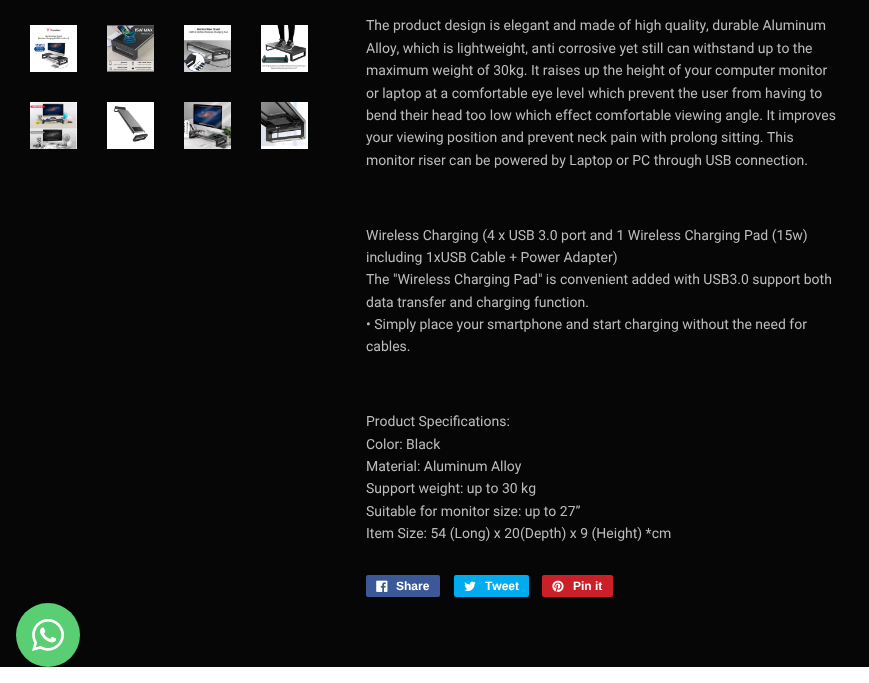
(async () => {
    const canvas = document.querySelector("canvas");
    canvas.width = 869;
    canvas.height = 683;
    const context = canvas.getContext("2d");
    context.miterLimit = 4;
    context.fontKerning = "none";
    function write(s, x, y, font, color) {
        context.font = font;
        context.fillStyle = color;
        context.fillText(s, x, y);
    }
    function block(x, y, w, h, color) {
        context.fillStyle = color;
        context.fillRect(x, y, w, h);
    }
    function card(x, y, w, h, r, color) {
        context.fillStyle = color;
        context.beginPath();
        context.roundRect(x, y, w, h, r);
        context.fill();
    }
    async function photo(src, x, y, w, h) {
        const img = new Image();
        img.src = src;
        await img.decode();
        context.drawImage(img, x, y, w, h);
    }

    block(0, 0, 869, 683, "rgb(6, 6, 6)");
    await photo("media/1.png", 30, 25, 47, 47);
    await photo("media/2.png", 107, 25, 47, 47);
    await photo("media/3.png", 184, 25, 47, 47);
    await photo("media/4.png", 261, 25, 47, 47);
    await photo("media/5.png", 30, 102, 47, 47);
    await photo("media/6.png", 107, 102, 47, 47);
    await photo("media/7.png", 184, 102, 47, 47);
    await photo("media/8.png", 261, 102, 47, 47);
    write("The product design is elegant and made of high quality, durable Aluminum", 366, 30, "14px Roboto", "rgb(188, 188, 188)");
    write("Alloy, which is lightweight, anti corrosive yet still can withstand up to the", 366, 53, "14px Roboto", "rgb(188, 188, 188)");
    write("maximum weight of 30kg. It raises up the height of your computer monitor", 366, 75, "14px Roboto", "rgb(188, 188, 188)");
    write("or laptop at a comfortable eye level which prevent the user from having to", 366, 98, "14px Roboto", "rgb(188, 188, 188)");
    write("bend their head too low which effect comfortable viewing angle. It improves", 366, 120, "14px Roboto", "rgb(188, 188, 188)");
    write("your viewing position and prevent neck pain with prolong sitting. This", 366, 142, "14px Roboto", "rgb(188, 188, 188)");
    write("monitor riser can be powered by Laptop or PC through USB connection.", 366, 165, "14px Roboto", "rgb(188, 188, 188)");
    write("Wireless Charging (4 x USB 3.0 port and 1 Wireless Charging Pad (15w)", 366, 240, "14px Roboto", "rgb(188, 188, 188)");
    write("including 1xUSB Cable + Power Adapter)", 366, 262, "14px Roboto", "rgb(188, 188, 188)");
    write("The \"Wireless Charging Pad\" is convenient added with USB3.0 support both", 366, 284, "14px Roboto", "rgb(188, 188, 188)");
    write("data transfer and charging function.", 366, 307, "14px Roboto", "rgb(188, 188, 188)");
    write("• Simply place your smartphone and start charging without the need for", 366, 329, "14px Roboto", "rgb(188, 188, 188)");
    write("cables.", 366, 351, "14px Roboto", "rgb(188, 188, 188)");
    write("Product Specifications:", 366, 426, "14px Roboto", "rgb(188, 188, 188)");
    write("Color: Black", 366, 449, "14px Roboto", "rgb(188, 188, 188)");
    write("Material: Aluminum Alloy", 366, 471, "14px Roboto", "rgb(188, 188, 188)");
    write("Support weight: up to 30 kg", 366, 493, "14px Roboto", "rgb(188, 188, 188)");
    write("Suitable for monitor size: up to 27”", 366, 516, "14px Roboto", "rgb(188, 188, 188)");
    write("Item Size: 54 (Long) x 20(Depth) x 9 (Height) *cm", 366, 538, "14px Roboto", "rgb(188, 188, 188)");
    card(366, 575, 74, 22, 2, "rgb(59, 89, 152)");
    await photo("media/9.png", 376, 580, 12, 12);
    write("Share", 396, 590, "bold 12px Liberation Sans", "rgb(255, 255, 255)");
    card(454, 575, 75, 22, 2, "rgb(0, 172, 237)");
    await photo("media/10.png", 464, 581, 12, 10);
    write("Tweet", 485, 590, "bold 12px Liberation Sans", "rgb(255, 255, 255)");
    card(542, 575, 71, 22, 2, "rgb(203, 32, 39)");
    await photo("media/11.png", 552, 580, 12, 12);
    write("Pin it", 573, 590, "bold 12px Liberation Sans", "rgb(255, 255, 255)");
    context.fillStyle = "rgb(89, 206, 114)";
    context.beginPath();
    context.arc(48, 635, 32, 0, Math.PI * 2);
    context.fill();
    await photo("media/12.png", 32, 619, 32, 32);
    block(0, 667, 869, 16, "rgb(255, 255, 255)");
})();
